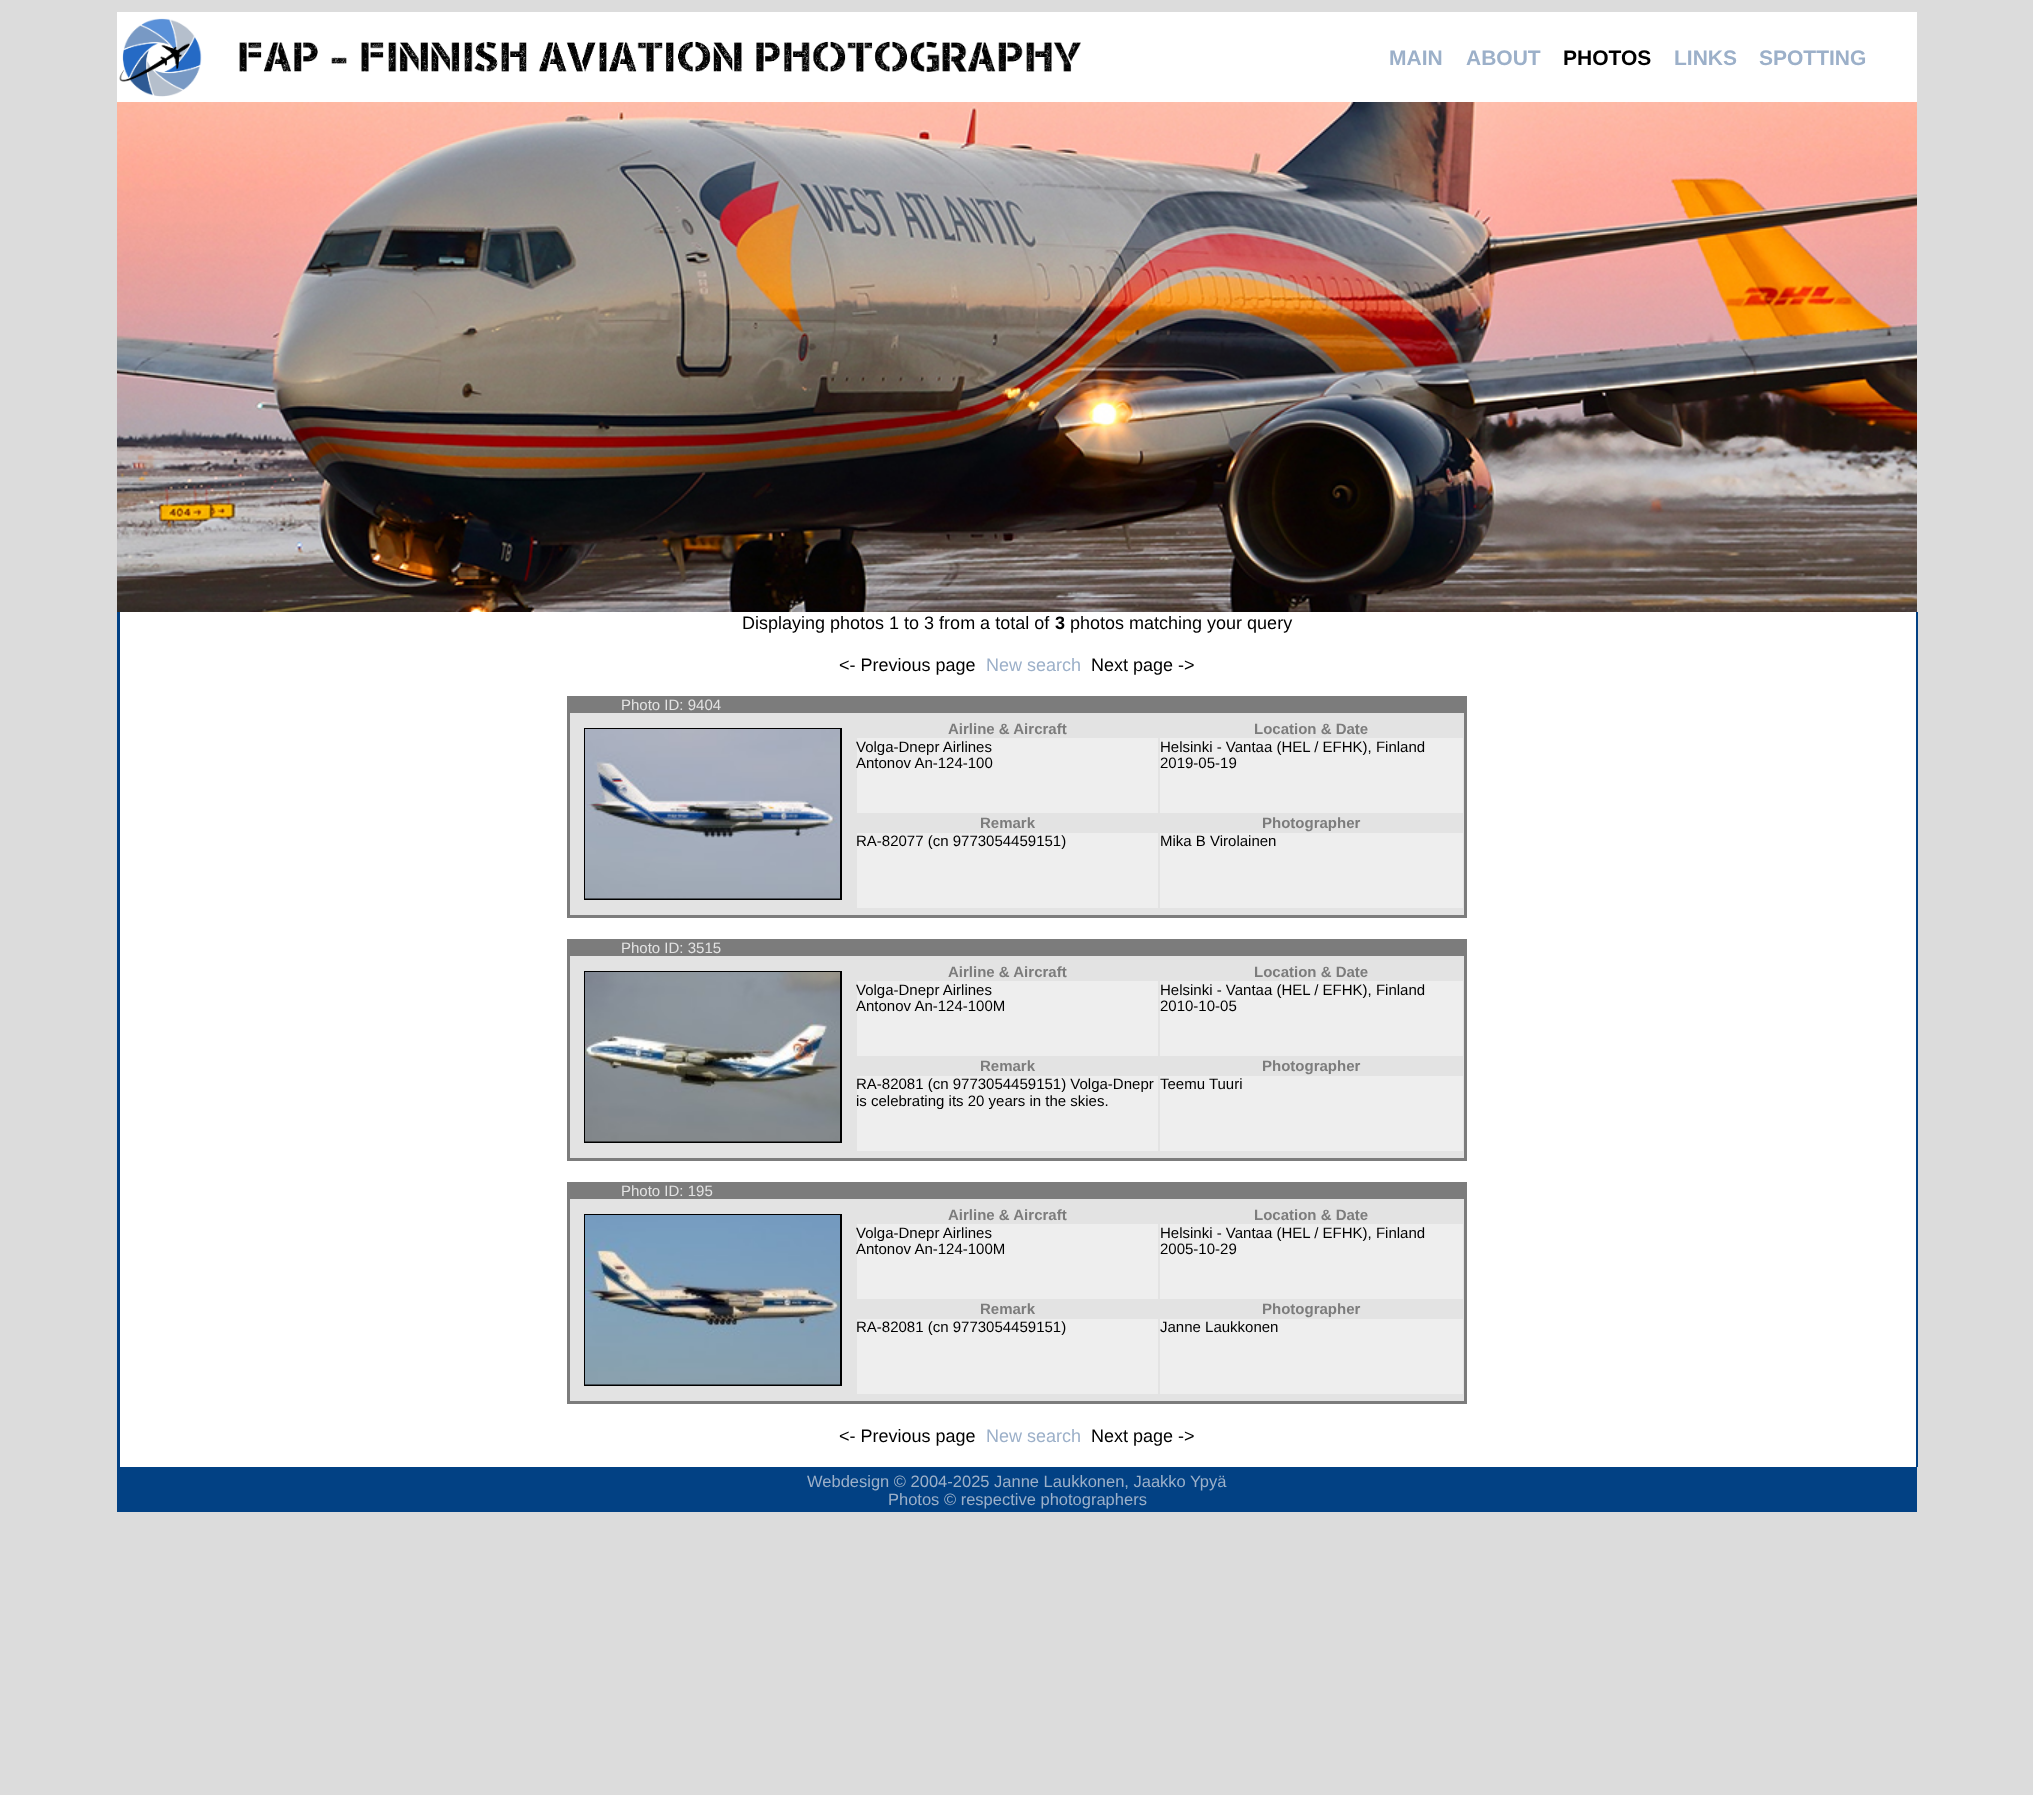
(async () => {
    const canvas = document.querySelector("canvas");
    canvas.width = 2033;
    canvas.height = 1795;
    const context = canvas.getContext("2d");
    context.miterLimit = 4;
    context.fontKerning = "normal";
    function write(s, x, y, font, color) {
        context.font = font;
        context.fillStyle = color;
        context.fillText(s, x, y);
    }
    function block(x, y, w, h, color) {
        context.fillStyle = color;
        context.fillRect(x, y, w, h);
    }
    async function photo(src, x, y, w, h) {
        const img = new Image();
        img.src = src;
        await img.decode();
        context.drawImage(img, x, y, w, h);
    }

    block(0, 0, 2033, 1795, "rgb(220, 220, 220)");
    block(117, 12, 1800, 90, "rgb(255, 255, 255)");
    await photo("media/1.png", 119, 18, 83, 79);
    await photo("media/2.png", 239, 41, 842, 31);
    write("MAIN", 1389, 65, "bold 21px Liberation Sans", "rgb(156, 176, 201)");
    write("ABOUT", 1466, 65, "bold 21px Liberation Sans", "rgb(156, 176, 201)");
    write("PHOTOS", 1563, 65, "bold 21px Liberation Sans", "rgb(0, 0, 0)");
    write("LINKS", 1674, 65, "bold 21px Liberation Sans", "rgb(156, 176, 201)");
    write("SPOTTING", 1759, 65, "bold 21px Liberation Sans", "rgb(156, 176, 201)");
    await photo("media/3.png", 117, 102, 1800, 510);
    block(120, 612, 1796, 855, "rgb(255, 255, 255)");
    block(117, 612, 3, 855, "rgb(2, 65, 132)");
    write("Displaying photos 1 to 3 from a total of", 742, 629, "18px Liberation Sans", "rgb(0, 0, 0)");
    write("3", 1055, 629, "bold 18px Liberation Sans", "rgb(0, 0, 0)");
    write("photos matching your query", 1070, 629, "18px Liberation Sans", "rgb(0, 0, 0)");
    write("<- Previous page", 839, 671, "18px Liberation Sans", "rgb(0, 0, 0)");
    write("New search", 986, 671, "18px Liberation Sans", "rgb(156, 176, 201)");
    write("Next page ->", 1091, 671, "18px Liberation Sans", "rgb(0, 0, 0)");
    block(567, 696, 900, 17, "rgb(124, 124, 124)");
    write("Photo ID: 9404", 621, 710, "15px Liberation Sans", "rgb(227, 227, 227)");
    block(570, 713, 894, 202, "rgb(227, 227, 227)");
    block(567, 713, 3, 202, "rgb(124, 124, 124)");
    context.strokeStyle = "rgb(0, 0, 0)";
    context.lineWidth = 2;
    context.strokeRect(585, 729, 256, 170);
    await photo("media/4.png", 585, 729, 255, 170);
    write("Airline & Aircraft", 948, 734, "bold 15px Liberation Sans", "rgb(124, 124, 124)");
    write("Location & Date", 1254, 734, "bold 15px Liberation Sans", "rgb(124, 124, 124)");
    block(857, 738, 301, 75, "rgb(238, 238, 238)");
    write("Volga-Dnepr Airlines", 856, 752, "15px Liberation Sans", "rgb(0, 0, 0)");
    write("Antonov An-124-100", 856, 768, "15px Liberation Sans", "rgb(0, 0, 0)");
    block(880, 755, 49, 1, "rgb(238, 238, 238)");
    block(1160, 738, 303, 75, "rgb(238, 238, 238)");
    write("Helsinki - Vantaa (HEL / EFHK), Finland", 1160, 752, "15px Liberation Sans", "rgb(0, 0, 0)");
    write("2019-05-19", 1160, 768, "15px Liberation Sans", "rgb(0, 0, 0)");
    write("Remark", 980, 828, "bold 15px Liberation Sans", "rgb(124, 124, 124)");
    write("Photographer", 1262, 828, "bold 15px Liberation Sans", "rgb(124, 124, 124)");
    block(857, 833, 301, 75, "rgb(238, 238, 238)");
    write("RA-82077 (cn 9773054459151)", 856, 846, "15px Liberation Sans", "rgb(0, 0, 0)");
    block(1160, 833, 303, 75, "rgb(238, 238, 238)");
    write("Mika B Virolainen", 1160, 846, "15px Liberation Sans", "rgb(0, 0, 0)");
    block(1464, 713, 3, 202, "rgb(124, 124, 124)");
    block(567, 915, 900, 3, "rgb(124, 124, 124)");
    block(567, 939, 900, 17, "rgb(124, 124, 124)");
    write("Photo ID: 3515", 621, 953, "15px Liberation Sans", "rgb(227, 227, 227)");
    block(570, 956, 894, 202, "rgb(227, 227, 227)");
    block(567, 956, 3, 202, "rgb(124, 124, 124)");
    context.strokeRect(585, 972, 256, 170);
    await photo("media/5.png", 585, 972, 255, 170);
    write("Airline & Aircraft", 948, 977, "bold 15px Liberation Sans", "rgb(124, 124, 124)");
    write("Location & Date", 1254, 977, "bold 15px Liberation Sans", "rgb(124, 124, 124)");
    block(857, 981, 301, 75, "rgb(238, 238, 238)");
    write("Volga-Dnepr Airlines", 856, 995, "15px Liberation Sans", "rgb(0, 0, 0)");
    write("Antonov An-124-100M", 856, 1011, "15px Liberation Sans", "rgb(0, 0, 0)");
    block(880, 998, 49, 1, "rgb(238, 238, 238)");
    block(1160, 981, 303, 75, "rgb(238, 238, 238)");
    write("Helsinki - Vantaa (HEL / EFHK), Finland", 1160, 995, "15px Liberation Sans", "rgb(0, 0, 0)");
    write("2010-10-05", 1160, 1011, "15px Liberation Sans", "rgb(0, 0, 0)");
    write("Remark", 980, 1071, "bold 15px Liberation Sans", "rgb(124, 124, 124)");
    write("Photographer", 1262, 1071, "bold 15px Liberation Sans", "rgb(124, 124, 124)");
    block(857, 1076, 301, 75, "rgb(238, 238, 238)");
    write("RA-82081 (cn 9773054459151) Volga-Dnepr", 856, 1089, "15px Liberation Sans", "rgb(0, 0, 0)");
    write("is celebrating its 20 years in the skies.", 856, 1106, "15px Liberation Sans", "rgb(0, 0, 0)");
    block(1160, 1076, 303, 75, "rgb(238, 238, 238)");
    write("Teemu Tuuri", 1160, 1089, "15px Liberation Sans", "rgb(0, 0, 0)");
    block(1464, 956, 3, 202, "rgb(124, 124, 124)");
    block(567, 1158, 900, 3, "rgb(124, 124, 124)");
    block(567, 1182, 900, 17, "rgb(124, 124, 124)");
    write("Photo ID: 195", 621, 1196, "15px Liberation Sans", "rgb(227, 227, 227)");
    block(570, 1199, 894, 202, "rgb(227, 227, 227)");
    block(567, 1199, 3, 202, "rgb(124, 124, 124)");
    context.strokeRect(585, 1215, 256, 170);
    await photo("media/6.png", 585, 1215, 255, 170);
    write("Airline & Aircraft", 948, 1220, "bold 15px Liberation Sans", "rgb(124, 124, 124)");
    write("Location & Date", 1254, 1220, "bold 15px Liberation Sans", "rgb(124, 124, 124)");
    block(857, 1224, 301, 75, "rgb(238, 238, 238)");
    write("Volga-Dnepr Airlines", 856, 1238, "15px Liberation Sans", "rgb(0, 0, 0)");
    write("Antonov An-124-100M", 856, 1254, "15px Liberation Sans", "rgb(0, 0, 0)");
    block(880, 1241, 49, 1, "rgb(238, 238, 238)");
    block(1160, 1224, 303, 75, "rgb(238, 238, 238)");
    write("Helsinki - Vantaa (HEL / EFHK), Finland", 1160, 1238, "15px Liberation Sans", "rgb(0, 0, 0)");
    write("2005-10-29", 1160, 1254, "15px Liberation Sans", "rgb(0, 0, 0)");
    write("Remark", 980, 1314, "bold 15px Liberation Sans", "rgb(124, 124, 124)");
    write("Photographer", 1262, 1314, "bold 15px Liberation Sans", "rgb(124, 124, 124)");
    block(857, 1319, 301, 75, "rgb(238, 238, 238)");
    write("RA-82081 (cn 9773054459151)", 856, 1332, "15px Liberation Sans", "rgb(0, 0, 0)");
    block(1160, 1319, 303, 75, "rgb(238, 238, 238)");
    write("Janne Laukkonen", 1160, 1332, "15px Liberation Sans", "rgb(0, 0, 0)");
    block(1464, 1199, 3, 202, "rgb(124, 124, 124)");
    block(567, 1401, 900, 3, "rgb(124, 124, 124)");
    write("<- Previous page", 839, 1442, "18px Liberation Sans", "rgb(0, 0, 0)");
    write("New search", 986, 1442, "18px Liberation Sans", "rgb(156, 176, 201)");
    write("Next page ->", 1091, 1442, "18px Liberation Sans", "rgb(0, 0, 0)");
    block(1916, 612, 2, 855, "rgb(2, 65, 132)");
    block(117, 1467, 1800, 45, "rgb(2, 65, 132)");
    write("Webdesign © 2004-2025 Janne Laukkonen, Jaakko Ypyä", 807, 1487, "16.5px Liberation Sans", "rgb(156, 176, 201)");
    write("Photos © respective photographers", 888, 1505, "16.5px Liberation Sans", "rgb(156, 176, 201)");
})();
